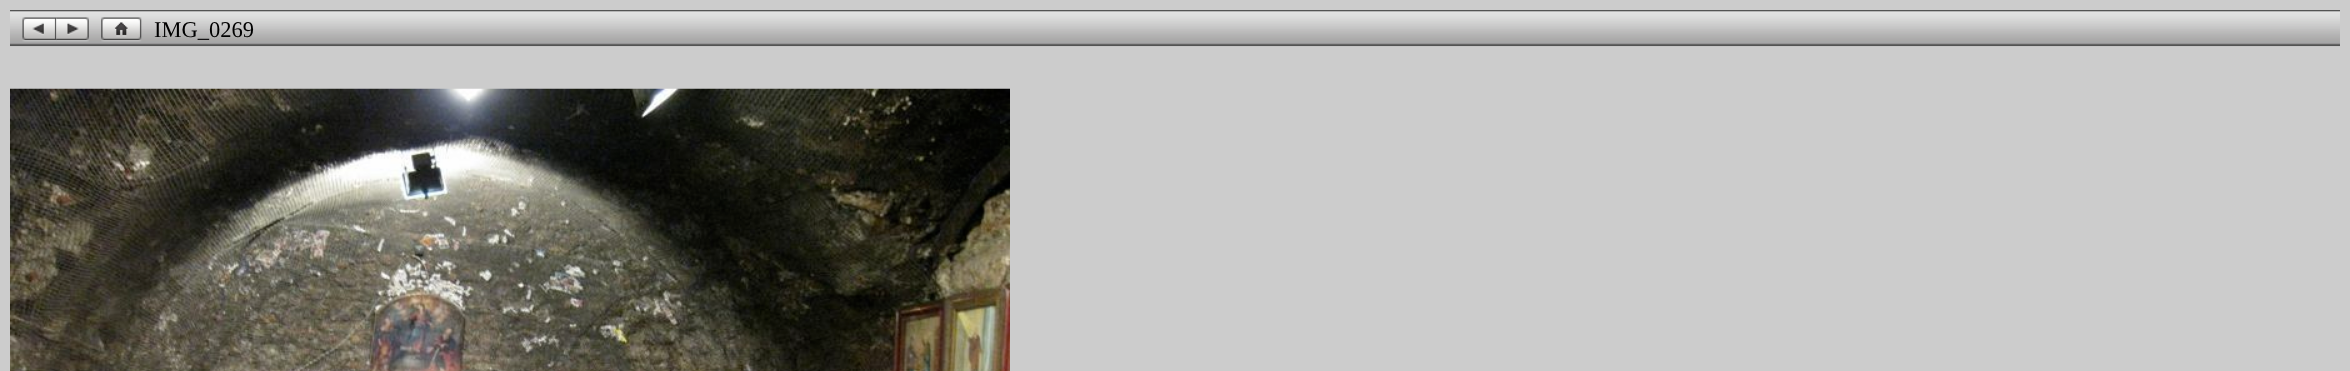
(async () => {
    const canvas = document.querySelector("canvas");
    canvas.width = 2350;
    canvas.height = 371;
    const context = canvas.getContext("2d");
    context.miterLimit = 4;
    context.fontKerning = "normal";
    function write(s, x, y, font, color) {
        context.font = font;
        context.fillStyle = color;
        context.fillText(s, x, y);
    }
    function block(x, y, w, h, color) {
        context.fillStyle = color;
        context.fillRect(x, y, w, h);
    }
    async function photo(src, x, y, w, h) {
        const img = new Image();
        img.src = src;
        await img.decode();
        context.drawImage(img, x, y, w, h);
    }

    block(0, 0, 2350, 371, "rgb(204, 204, 204)");
    await photo("media/1.png", 10, 10, 2330, 37);
    await photo("media/2.png", 22, 17, 35, 25);
    await photo("media/3.png", 56, 17, 33, 25);
    await photo("media/4.png", 101, 17, 41, 25);
    write("IMG_0269", 154, 37, "22.5px Liberation Serif", "rgb(0, 0, 0)");
    await photo("media/5.png", 10, 88, 1000, 283);
})();
